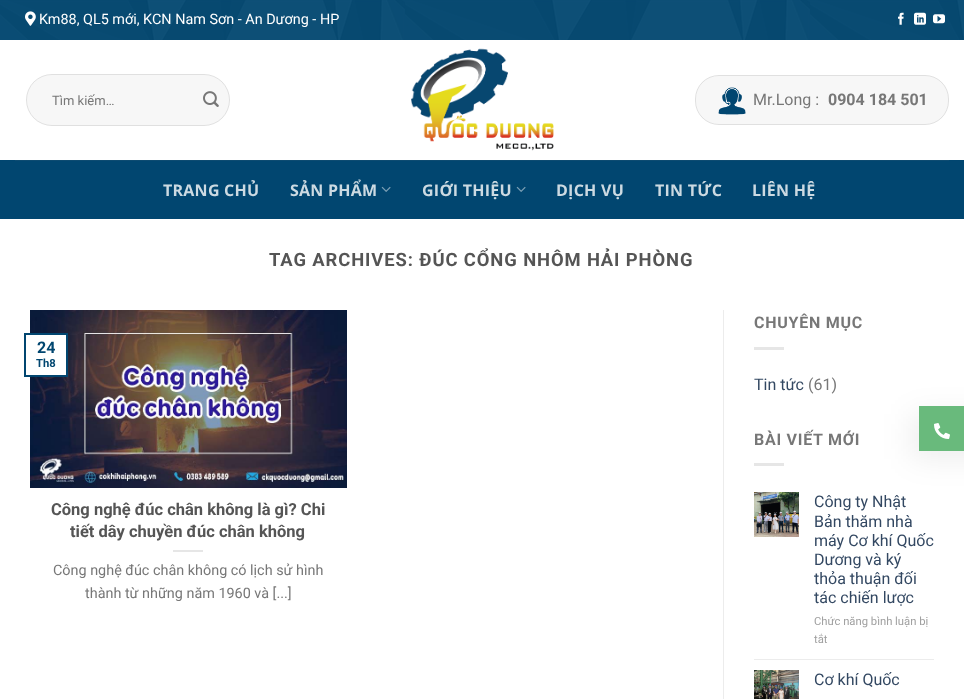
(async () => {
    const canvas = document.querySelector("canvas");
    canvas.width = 964;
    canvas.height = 699;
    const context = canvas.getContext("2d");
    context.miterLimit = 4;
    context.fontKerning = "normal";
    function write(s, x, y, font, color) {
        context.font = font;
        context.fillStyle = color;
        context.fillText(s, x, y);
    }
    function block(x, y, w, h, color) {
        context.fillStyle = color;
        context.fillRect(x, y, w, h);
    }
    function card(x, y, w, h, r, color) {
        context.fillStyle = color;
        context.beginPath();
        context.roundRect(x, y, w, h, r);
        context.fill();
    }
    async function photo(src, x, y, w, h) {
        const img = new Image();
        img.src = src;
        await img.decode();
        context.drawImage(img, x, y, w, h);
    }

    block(0, 0, 964, 699, "rgb(255, 255, 255)");
    block(0, 0, 964, 40, "rgb(1, 70, 112)");
    await photo("media/1.png", 0, 0, 964, 40);
    await photo("media/2.png", 25, 11, 11, 15);
    write("Km88, QL5 mới, KCN Nam Sơn - An Dương - HP", 39, 24, "14.4px Roboto", "rgb(255, 255, 255)");
    await photo("media/3.png", 898, 12, 6, 13);
    await photo("media/4.png", 914, 12, 12, 13);
    await photo("media/5.png", 933, 14, 12, 10);
    card(26, 74, 204, 52, 26, "rgb(247, 247, 247)");
    context.beginPath();
    context.roundRect(26.5, 74.5, 203, 51, 25.5);
    context.strokeStyle = "rgba(0, 0, 0, 0.09)";
    context.stroke();
    write("Tìm kiếm…", 52, 105, "13px Roboto", "rgb(119, 119, 119)");
    await photo("media/6.png", 203, 91, 16, 16);
    await photo("media/7.png", 411, 48, 143, 103);
    card(695, 75, 254, 50, 24, "rgb(247, 247, 247)");
    context.beginPath();
    context.roundRect(695.5, 75.5, 253, 49, 23.5);
    context.stroke();
    await photo("media/8.png", 718, 87, 28, 28);
    write("Mr.Long :", 753, 105, "16px Roboto", "rgb(119, 119, 119)");
    write("0904 184 501", 828, 105, "bold 16px Roboto", "rgb(119, 119, 119)");
    block(0, 160, 964, 59, "rgb(1, 70, 112)");
    block(15, 160, 934, 1, "rgb(13, 75, 113)");
    context.letterSpacing = "0.25px";
    write("TRANG CHỦ", 163, 196, "bold 16px Open Sans", "rgb(204, 218, 226)");
    write("SẢN PHẨM", 290, 196, "bold 16px Open Sans", "rgb(204, 218, 226)");
    await photo("media/9.png", 381, 186, 10, 6);
    write("GIỚI THIỆU", 422, 196, "bold 16px Open Sans", "rgb(204, 218, 226)");
    await photo("media/9.png", 516, 186, 10, 6);
    write("DỊCH VỤ", 556, 196, "bold 16px Open Sans", "rgb(204, 218, 226)");
    write("TIN TỨC", 655, 196, "bold 16px Open Sans", "rgb(204, 218, 226)");
    write("LIÊN HỆ", 752, 196, "bold 16px Open Sans", "rgb(204, 218, 226)");
    context.letterSpacing = "0.9px";
    write("TAG ARCHIVES: ĐÚC CỔNG NHÔM HẢI PHÒNG", 269, 266, "bold 18.4px Roboto", "rgb(85, 85, 85)");
    await photo("media/10.png", 30, 310, 317, 178);
    block(30, 335, 36, 40, "rgb(255, 255, 255)");
    context.strokeStyle = "rgb(1, 70, 112)";
    context.lineWidth = 2;
    context.strokeRect(25, 334, 42, 42);
    context.letterSpacing = "0px";
    write("24", 37, 353, "bold 16px Roboto", "rgb(1, 70, 112)");
    write("Th8", 36, 367, "bold 11.25px Roboto", "rgb(1, 70, 112)");
    write("Công nghệ đúc chân không là gì? Chi", 51, 515, "bold 16.5px Roboto", "rgb(85, 85, 85)");
    write("tiết dây chuyền đúc chân không", 70, 537, "bold 16.5px Roboto", "rgb(85, 85, 85)");
    block(173, 550, 30, 2, "rgb(230, 230, 230)");
    write("Công nghệ đúc chân không có lịch sử hình", 53, 575, "14.4px Roboto", "rgb(119, 119, 119)");
    write("thành từ những năm 1960 và [...]", 85, 598, "14.4px Roboto", "rgb(119, 119, 119)");
    block(723, 310, 1, 389, "rgb(236, 236, 236)");
    context.letterSpacing = "0.75px";
    write("CHUYÊN MỤC", 754, 328, "bold 16px Roboto", "rgb(119, 119, 119)");
    block(754, 347, 30, 3, "rgb(230, 230, 230)");
    context.letterSpacing = "0px";
    write("Tin tức", 754, 390, "16px Roboto", "rgb(51, 72, 98)");
    write("(61)", 808, 390, "16px Roboto", "rgb(119, 119, 119)");
    context.letterSpacing = "0.75px";
    write("BÀI VIẾT MỚI", 754, 445, "bold 16px Roboto", "rgb(119, 119, 119)");
    block(754, 463, 30, 3, "rgb(230, 230, 230)");
    await photo("media/11.png", 754, 492, 45, 45);
    context.letterSpacing = "0px";
    write("Công ty Nhật", 814, 507, "16px Roboto", "rgb(51, 72, 98)");
    write("Bản thăm nhà", 814, 527, "16px Roboto", "rgb(51, 72, 98)");
    write("máy Cơ khí Quốc", 814, 546, "16px Roboto", "rgb(51, 72, 98)");
    write("Dương và ký", 814, 565, "16px Roboto", "rgb(51, 72, 98)");
    write("thỏa thuận đối", 814, 584, "16px Roboto", "rgb(51, 72, 98)");
    write("tác chiến lược", 814, 603, "16px Roboto", "rgb(51, 72, 98)");
    write("Chức năng bình luận bị", 814, 625, "11.25px Roboto", "rgb(160, 160, 160)");
    write("tắt", 814, 643, "11.25px Roboto", "rgb(160, 160, 160)");
    block(754, 659, 180, 1, "rgb(236, 236, 236)");
    await photo("media/12.png", 754, 670, 45, 29);
    write("Cơ khí Quốc", 814, 685, "16px Roboto", "rgb(51, 72, 98)");
    context.fillStyle = "rgba(0, 0, 0, 0.07)";
    context.filter = "blur(15px)";
    context.beginPath();
    context.rect(911, 414, 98, 45);
    context.fill();
    context.filter = "none";
    block(919, 406, 45, 45, "rgb(105, 186, 124)");
    await photo("media/13.png", 934, 423, 16, 16);
})();
